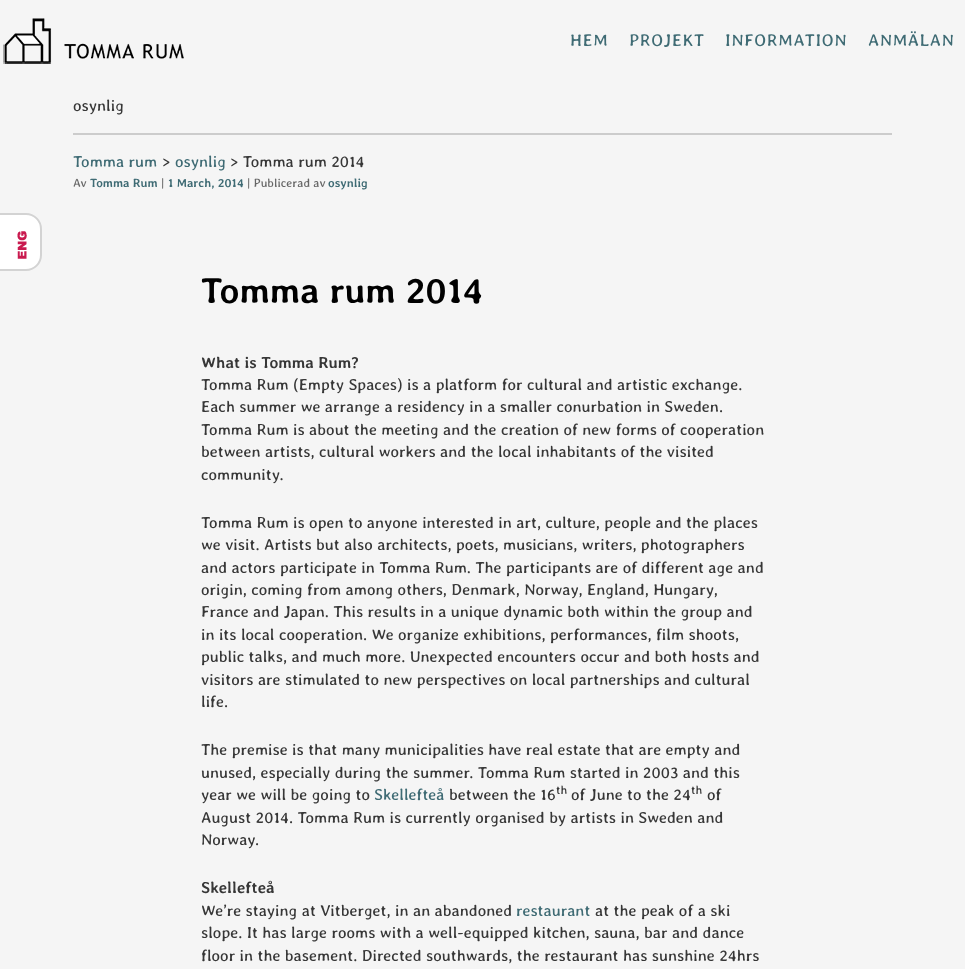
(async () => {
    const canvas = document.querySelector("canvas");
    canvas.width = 965;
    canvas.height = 969;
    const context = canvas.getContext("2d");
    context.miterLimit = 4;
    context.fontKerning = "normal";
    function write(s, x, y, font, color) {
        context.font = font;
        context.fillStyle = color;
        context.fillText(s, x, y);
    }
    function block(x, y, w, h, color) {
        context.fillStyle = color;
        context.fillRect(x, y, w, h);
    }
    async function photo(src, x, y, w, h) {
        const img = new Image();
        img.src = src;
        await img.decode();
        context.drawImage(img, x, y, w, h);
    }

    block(0, 0, 965, 969, "rgb(245, 245, 245)");
    await photo("media/1.png", 3, 18, 181, 46);
    context.letterSpacing = "0.75px";
    write("HEM", 570, 46, "17px Averia Libre", "rgb(63, 107, 116)");
    write("PROJEKT", 629, 46, "17px Averia Libre", "rgb(63, 107, 116)");
    write("INFORMATION", 725, 46, "17px Averia Libre", "rgb(63, 107, 116)");
    write("ANMÄLAN", 868, 46, "17px Averia Libre", "rgb(63, 107, 116)");
    context.fillStyle = "rgb(255, 255, 255)";
    context.beginPath();
    context.roundRect(-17, 214, 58, 56, 15);
    context.fill();
    context.strokeStyle = "rgb(211, 211, 211)";
    context.lineWidth = 2;
    context.stroke();
    await photo("media/2.png", 17, 231, 10, 28);
    context.letterSpacing = "0px";
    write("osynlig", 73, 111, "16px Averia Libre", "rgb(55, 55, 55)");
    block(73, 133, 819, 2, "rgb(204, 204, 204)");
    write("Tomma rum", 73, 167, "16px Averia Libre", "rgb(63, 107, 116)");
    write(">", 162, 167, "16px Averia Libre", "rgb(55, 55, 55)");
    write("osynlig", 175, 167, "16px Averia Libre", "rgb(63, 107, 116)");
    write("> Tomma rum 2014", 230, 167, "16px Averia Libre", "rgb(55, 55, 55)");
    write("Av", 73, 187, "12px Averia Libre", "rgb(102, 102, 102)");
    write("Tomma Rum", 90, 187, "bold 12px Averia Libre", "rgb(63, 107, 116)");
    write("|", 161, 187, "12px Averia Libre", "rgb(102, 102, 102)");
    write("1 March, 2014", 168, 187, "bold 12px Averia Libre", "rgb(63, 107, 116)");
    write("| Publicerad av", 247, 187, "12px Averia Libre", "rgb(102, 102, 102)");
    write("osynlig", 328, 187, "bold 12px Averia Libre", "rgb(63, 107, 116)");
    write("Tomma rum 2014", 201, 303, "bold 36px Averia Libre", "rgb(0, 0, 0)");
    write("What is Tomma Rum?", 201, 368, "bold 16px Averia Libre", "rgb(55, 55, 55)");
    write("Tomma Rum (Empty Spaces) is a platform for cultural and artistic exchange.", 201, 390, "16px Averia Libre", "rgb(55, 55, 55)");
    write("Each summer we arrange a residency in a smaller conurbation in Sweden.", 201, 412, "16px Averia Libre", "rgb(55, 55, 55)");
    write("Tomma Rum is about the meeting and the creation of new forms of cooperation", 201, 435, "16px Averia Libre", "rgb(55, 55, 55)");
    write("between artists, cultural workers and the local inhabitants of the visited", 201, 457, "16px Averia Libre", "rgb(55, 55, 55)");
    write("community.", 201, 480, "16px Averia Libre", "rgb(55, 55, 55)");
    write("Tomma Rum is open to anyone interested in art, culture, people and the places", 201, 528, "16px Averia Libre", "rgb(55, 55, 55)");
    write("we visit. Artists but also architects, poets, musicians, writers, photographers", 201, 550, "16px Averia Libre", "rgb(55, 55, 55)");
    write("and actors participate in Tomma Rum. The participants are of different age and", 201, 573, "16px Averia Libre", "rgb(55, 55, 55)");
    write("origin, coming from among others, Denmark, Norway, England, Hungary,", 201, 595, "16px Averia Libre", "rgb(55, 55, 55)");
    write("France and Japan. This results in a unique dynamic both within the group and", 201, 617, "16px Averia Libre", "rgb(55, 55, 55)");
    write("in its local cooperation. We organize exhibitions, performances, film shoots,", 201, 640, "16px Averia Libre", "rgb(55, 55, 55)");
    write("public talks, and much more. Unexpected encounters occur and both hosts and", 201, 662, "16px Averia Libre", "rgb(55, 55, 55)");
    write("visitors are stimulated to new perspectives on local partnerships and cultural", 201, 685, "16px Averia Libre", "rgb(55, 55, 55)");
    write("life.", 201, 707, "16px Averia Libre", "rgb(55, 55, 55)");
    write("The premise is that many municipalities have real estate that are empty and", 201, 755, "16px Averia Libre", "rgb(55, 55, 55)");
    write("unused, especially during the summer. Tomma Rum started in 2003 and this", 201, 778, "16px Averia Libre", "rgb(55, 55, 55)");
    write("year we will be going to", 201, 800, "16px Averia Libre", "rgb(55, 55, 55)");
    write("Skellefteå", 374, 800, "16px Averia Libre", "rgb(63, 107, 116)");
    write("between the 16", 449, 800, "16px Averia Libre", "rgb(55, 55, 55)");
    write("th", 556, 794, "12px Averia Libre", "rgb(55, 55, 55)");
    write("of June to the 24", 571, 800, "16px Averia Libre", "rgb(55, 55, 55)");
    write("th", 691, 794, "12px Averia Libre", "rgb(55, 55, 55)");
    write("of", 707, 800, "16px Averia Libre", "rgb(55, 55, 55)");
    write("August 2014. Tomma Rum is currently organised by artists in Sweden and", 201, 823, "16px Averia Libre", "rgb(55, 55, 55)");
    write("Norway.", 201, 845, "16px Averia Libre", "rgb(55, 55, 55)");
    write("Skellefteå", 201, 893, "bold 16px Averia Libre", "rgb(55, 55, 55)");
    write("We’re staying at Vitberget, in an abandoned", 201, 916, "16px Averia Libre", "rgb(55, 55, 55)");
    write("restaurant", 516, 916, "16px Averia Libre", "rgb(63, 107, 116)");
    write("at the peak of a ski", 595, 916, "16px Averia Libre", "rgb(55, 55, 55)");
    write("slope. It has large rooms with a well-equipped kitchen, sauna, bar and dance", 201, 938, "16px Averia Libre", "rgb(55, 55, 55)");
    write("floor in the basement. Directed southwards, the restaurant has sunshine 24hrs", 201, 961, "16px Averia Libre", "rgb(55, 55, 55)");
})();
